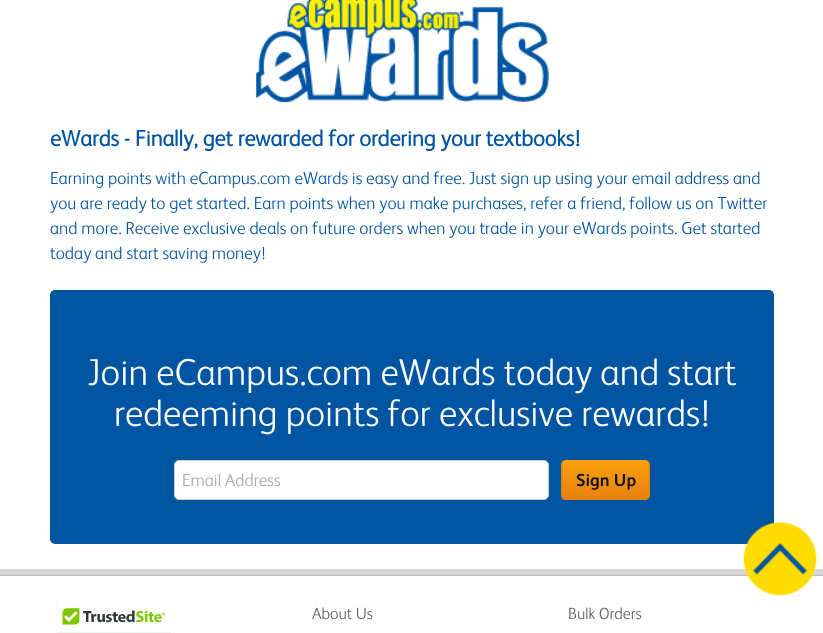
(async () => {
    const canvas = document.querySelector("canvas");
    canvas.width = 823;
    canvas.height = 633;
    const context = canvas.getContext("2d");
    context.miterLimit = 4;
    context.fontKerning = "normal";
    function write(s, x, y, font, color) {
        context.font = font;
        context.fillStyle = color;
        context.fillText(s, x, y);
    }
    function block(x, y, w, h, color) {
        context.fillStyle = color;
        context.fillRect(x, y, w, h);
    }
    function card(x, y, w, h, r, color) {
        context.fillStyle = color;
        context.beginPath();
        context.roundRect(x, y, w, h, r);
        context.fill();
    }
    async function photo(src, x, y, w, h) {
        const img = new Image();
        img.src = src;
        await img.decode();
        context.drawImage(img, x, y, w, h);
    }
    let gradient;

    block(0, 0, 823, 633, "rgb(255, 255, 255)");
    await photo("media/1.png", 256, 0, 293, 102);
    write("eWards - Finally, get rewarded for ordering your textbooks!", 50, 146, "bold 22.5px 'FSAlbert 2'", "rgb(0, 85, 163)");
    write("Earning points with eCampus.com eWards is easy and free. Just sign up using your email address and", 50, 184, "300 17.5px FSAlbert", "rgb(0, 85, 163)");
    write("you are ready to get started. Earn points when you make purchases, refer a friend, follow us on Twitter", 50, 209, "300 17.5px FSAlbert", "rgb(0, 85, 163)");
    write("and more. Receive exclusive deals on future orders when you trade in your eWards points. Get started", 50, 234, "300 17.5px FSAlbert", "rgb(0, 85, 163)");
    write("today and start saving money!", 50, 259, "300 17.5px FSAlbert", "rgb(0, 85, 163)");
    card(50, 290, 724, 254, 5, "rgb(0, 85, 163)");
    write("Join eCampus.com eWards today and start", 87, 385, "300 37.5px FSAlbert", "rgb(255, 255, 255)");
    write("redeeming points for exclusive rewards!", 114, 426, "300 37.5px FSAlbert", "rgb(255, 255, 255)");
    context.beginPath();
    context.roundRect(174.5, 460.5, 374, 39, 4.5);
    context.fill();
    context.strokeStyle = "rgb(204, 204, 204)";
    context.stroke();
    write("Email Address", 182, 486, "300 17.5px FSAlbert", "rgb(168, 168, 168)");
    context.save();
    context.beginPath();
    context.roundRect(561, 460, 89, 40, 5);
    context.clip();
    gradient = context.createLinearGradient(563, 424, 563, 461);
    gradient.addColorStop(0, "rgb(250, 161, 15)");
    gradient.addColorStop(1, "rgb(232, 128, 16)");
    context.fillStyle = gradient;
    context.fillRect(561, 460, 89, 1);
    gradient = context.createLinearGradient(563, 461, 563, 499);
    gradient.addColorStop(0, "rgb(250, 161, 15)");
    gradient.addColorStop(1, "rgb(232, 128, 16)");
    context.fillStyle = gradient;
    context.fillRect(561, 461, 89, 38);
    gradient = context.createLinearGradient(563, 499, 563, 536);
    gradient.addColorStop(0, "rgb(250, 161, 15)");
    gradient.addColorStop(1, "rgb(232, 128, 16)");
    context.fillStyle = gradient;
    context.fillRect(561, 499, 89, 1);
    context.restore();
    context.save();
    context.beginPath();
    context.rect(174, 460, 476, 40);
    context.clip();
    context.beginPath();
    context.moveTo(563, 462);
    context.lineTo(566, 460.5);
    context.lineTo(645.5, 460.5);
    context.lineTo(648, 462);
    context.strokeStyle = "rgb(250, 161, 15)";
    context.lineWidth = 1.2;
    context.stroke();
    context.beginPath();
    context.moveTo(648, 462);
    context.bezierCurveTo(650, 464, 649.5, 467.5, 649.5, 470);
    context.lineTo(649.5, 480);
    context.bezierCurveTo(649.5, 501.5, 653, 499.5, 632, 499.5);
    context.lineTo(579.5, 499.5);
    context.bezierCurveTo(558, 499.5, 562, 501.5, 562, 480);
    context.lineTo(562, 470);
    context.bezierCurveTo(562, 467.5, 561, 464, 563, 462);
    context.strokeStyle = "rgb(232, 128, 16)";
    context.stroke();
    context.restore();
    write("Sign Up", 576, 486, "bold 17.5px FSAlbert", "rgb(20, 20, 20)");
    block(0, 569, 823, 6, "rgb(215, 215, 215)");
    block(0, 575, 823, 1, "rgb(191, 191, 191)");
    await photo("media/2.png", 743, 522, 74, 74);
    await photo("media/3.png", 56, 601, 115, 32);
    write("About Us", 312, 619, "300 16.25px FSAlbert", "rgb(97, 97, 97)");
    write("Bulk Orders", 568, 619, "300 16.25px FSAlbert", "rgb(97, 97, 97)");
})();
